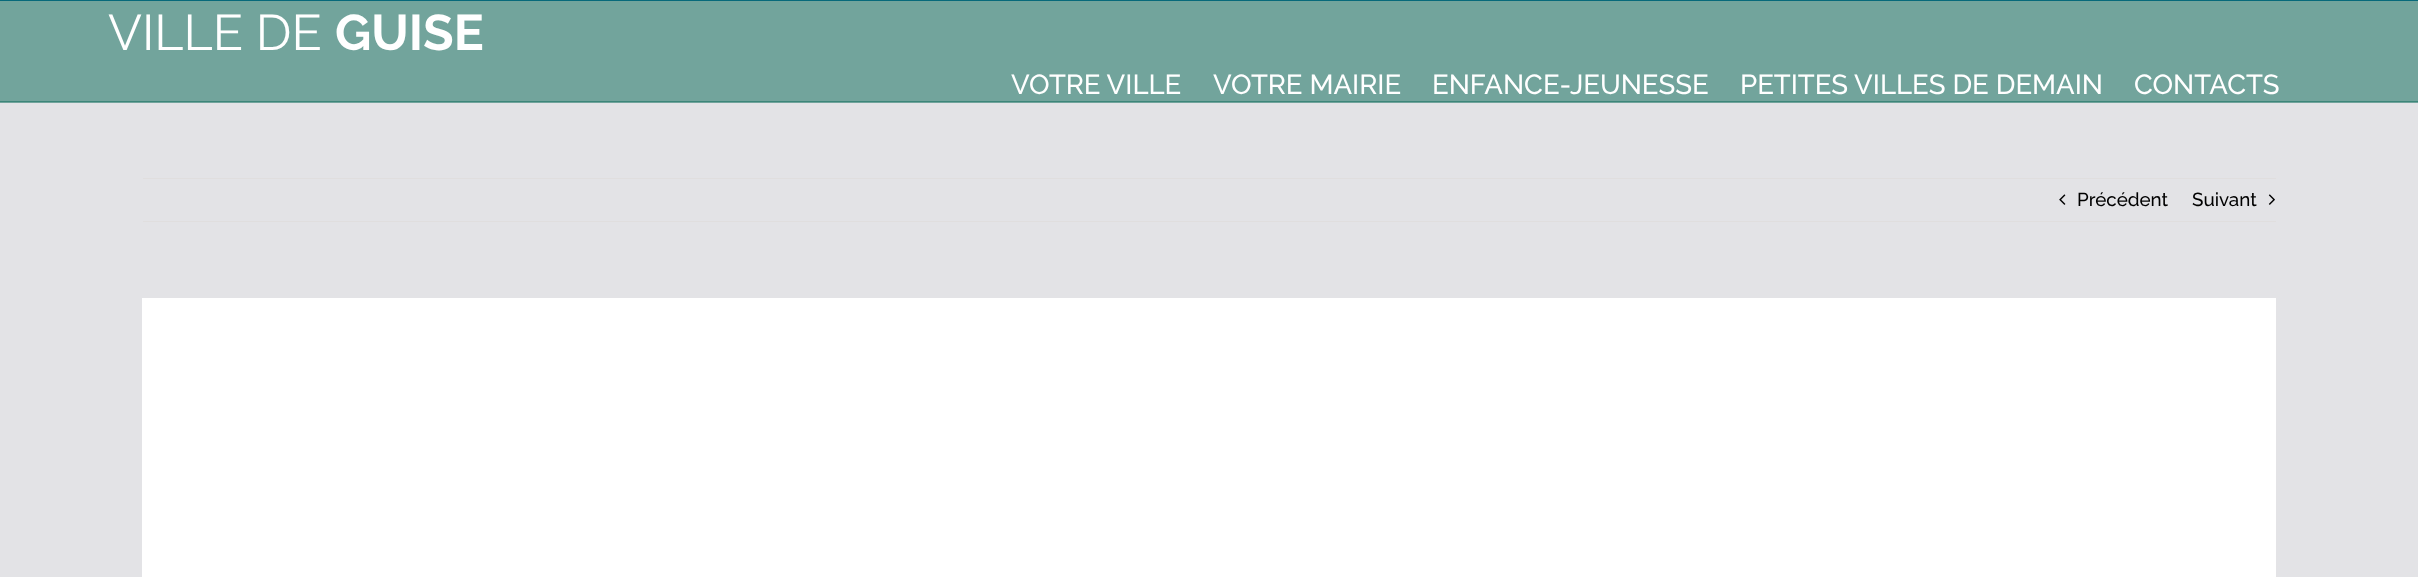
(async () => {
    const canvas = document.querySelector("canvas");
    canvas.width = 2418;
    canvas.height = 577;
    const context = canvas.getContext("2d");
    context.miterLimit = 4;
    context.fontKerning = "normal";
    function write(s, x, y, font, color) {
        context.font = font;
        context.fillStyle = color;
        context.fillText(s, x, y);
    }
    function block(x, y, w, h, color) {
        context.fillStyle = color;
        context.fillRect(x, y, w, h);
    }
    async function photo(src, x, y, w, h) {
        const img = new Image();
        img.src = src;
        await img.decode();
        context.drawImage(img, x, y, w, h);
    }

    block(0, 0, 2418, 577, "rgb(227, 227, 230)");
    block(0, 0, 2418, 1, "rgb(7, 105, 122)");
    block(0, 1, 2418, 102, "rgb(114, 164, 156)");
    block(0, 101, 2418, 1, "rgb(61, 134, 121)");
    write("VILLE DE", 108, 50, "50px Raleway", "rgb(255, 255, 255)");
    write("GUISE", 335, 50, "bold 50px Raleway", "rgb(255, 255, 255)");
    write("VOTRE VILLE", 1011, 94, "500 27.5px Raleway", "rgb(255, 255, 255)");
    write("VOTRE MAIRIE", 1213, 94, "500 27.5px Raleway", "rgb(255, 255, 255)");
    write("ENFANCE-JEUNESSE", 1432, 94, "500 27.5px Raleway", "rgb(255, 255, 255)");
    write("PETITES VILLES DE DEMAIN", 1740, 94, "500 27.5px Raleway", "rgb(255, 255, 255)");
    write("CONTACTS", 2134, 94, "500 27.5px Raleway", "rgb(255, 255, 255)");
    block(143, 178, 2133, 1, "rgb(224, 222, 222)");
    block(143, 221, 2133, 1, "rgb(224, 222, 222)");
    await photo("media/1.png", 2059, 194, 7, 11);
    write("Précédent", 2077, 206, "500 18.75px Raleway", "rgb(0, 0, 0)");
    write("Suivant", 2192, 206, "500 18.75px Raleway", "rgb(0, 0, 0)");
    await photo("media/2.png", 2268, 194, 7, 11);
    block(142, 298, 2134, 279, "rgb(255, 255, 255)");
})();
